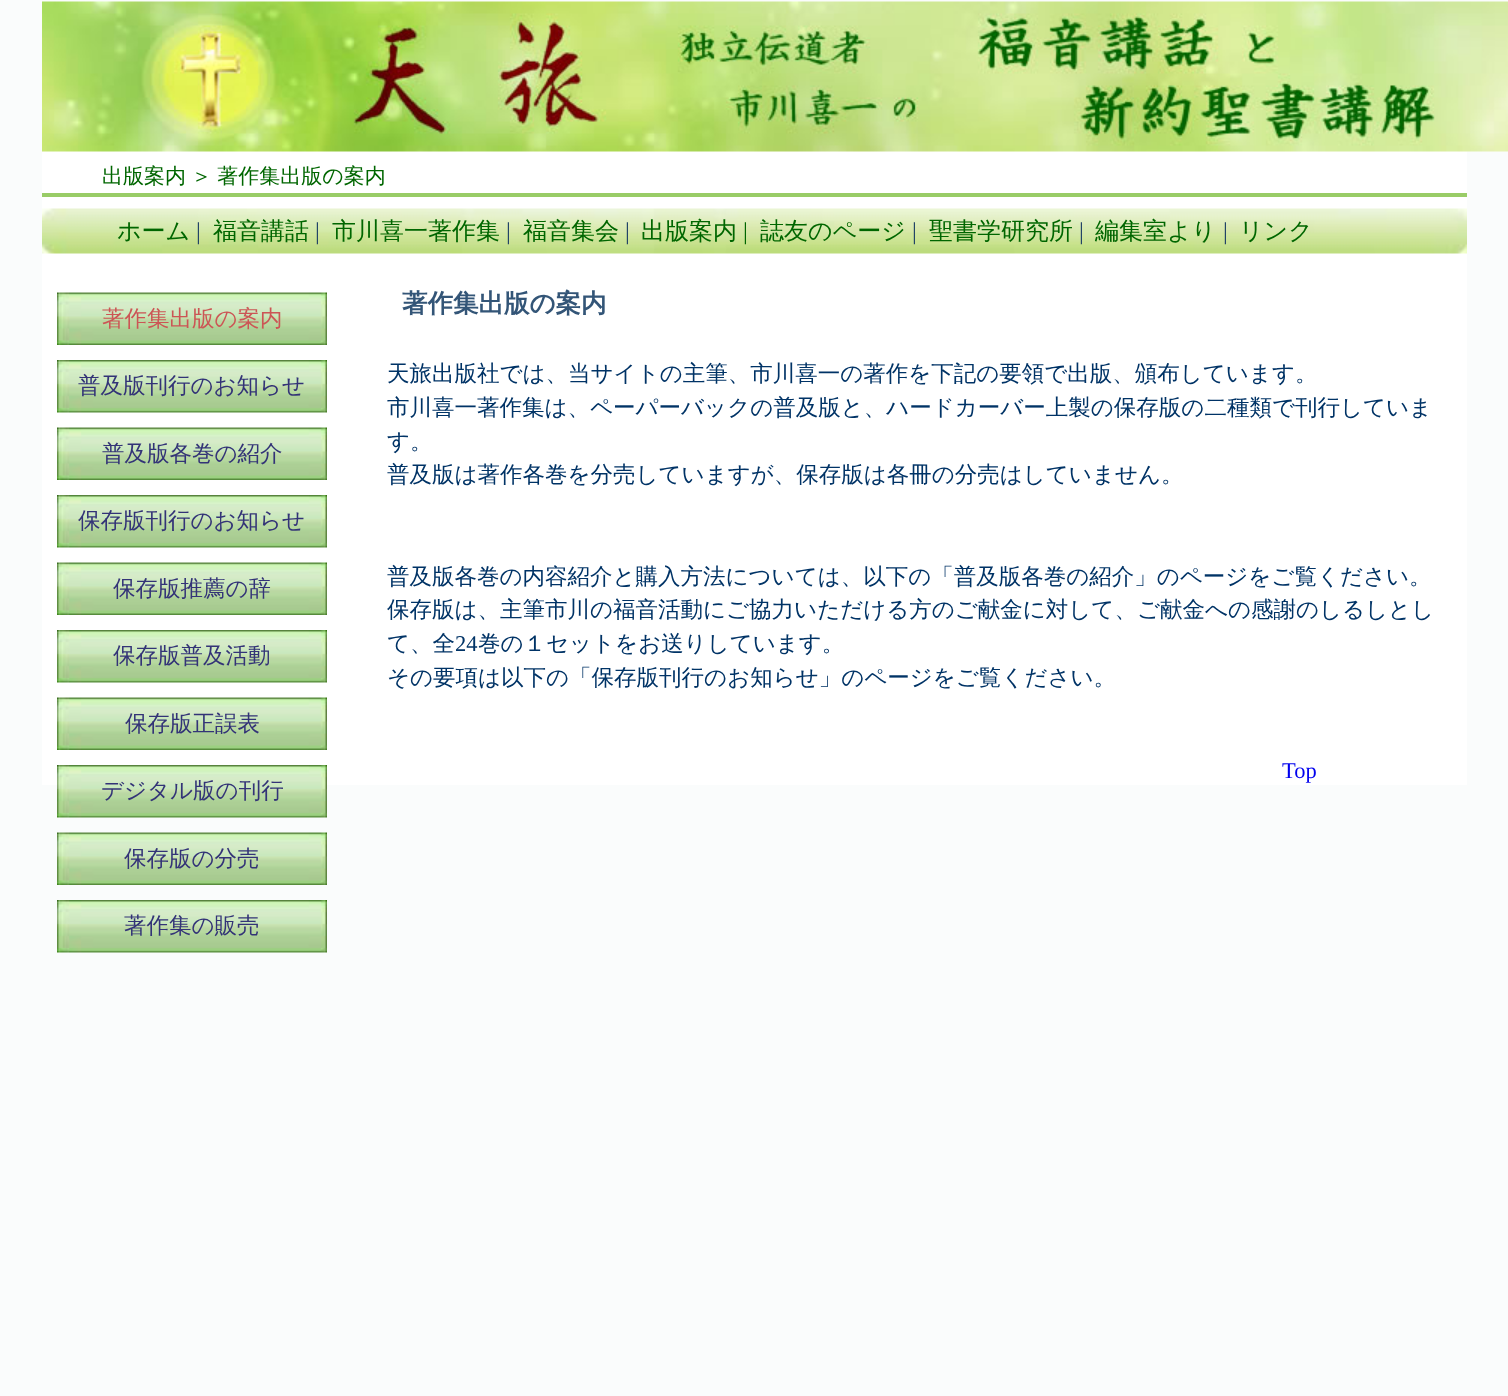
(async () => {
    const canvas = document.querySelector("canvas");
    canvas.width = 1508;
    canvas.height = 1396;
    const context = canvas.getContext("2d");
    context.miterLimit = 4;
    context.fontKerning = "normal";
    function write(s, x, y, font, color) {
        context.font = font;
        context.fillStyle = color;
        context.fillText(s, x, y);
    }
    function block(x, y, w, h, color) {
        context.fillStyle = color;
        context.fillRect(x, y, w, h);
    }
    async function photo(src, x, y, w, h) {
        const img = new Image();
        img.src = src;
        await img.decode();
        context.drawImage(img, x, y, w, h);
    }

    block(0, 0, 1508, 1396, "rgb(250, 252, 252)");
    block(42, 151, 1425, 634, "rgb(255, 255, 255)");
    await photo("media/1.png", 42, 1, 1466, 151);
    write("出版案内", 102, 183, "500 21px WenQuanYi Zen Hei", "rgb(0, 102, 0)");
    context.wordSpacing = "-1px";
    write("＞ 著作集出版の案内", 191, 183, "500 21px WenQuanYi Zen Hei", "rgb(0, 102, 0)");
    block(42, 193, 1425, 4, "rgb(153, 204, 103)");
    await photo("media/2.png", 42, 208, 1425, 46);
    context.wordSpacing = "0px";
    write("ホーム", 117, 239, "500 24px WenQuanYi Zen Hei", "rgb(0, 102, 0)");
    write("|", 196, 239, "24px Liberation Serif", "rgb(34, 68, 102)");
    write("福音講話", 213, 239, "500 24px WenQuanYi Zen Hei", "rgb(0, 102, 0)");
    write("|", 315, 239, "24px Liberation Serif", "rgb(34, 68, 102)");
    write("市川喜一著作集", 332, 239, "500 24px WenQuanYi Zen Hei", "rgb(0, 102, 0)");
    write("|", 506, 239, "24px Liberation Serif", "rgb(34, 68, 102)");
    write("福音集会", 523, 239, "500 24px WenQuanYi Zen Hei", "rgb(0, 102, 0)");
    write("|", 625, 239, "24px Liberation Serif", "rgb(34, 68, 102)");
    write("出版案内", 641, 239, "500 24px WenQuanYi Zen Hei", "rgb(0, 102, 0)");
    write("|", 743, 239, "24px Liberation Serif", "rgb(0, 102, 0)");
    write("誌友のページ", 760, 239, "500 24px WenQuanYi Zen Hei", "rgb(0, 102, 0)");
    write("|", 912, 239, "24px Liberation Serif", "rgb(34, 68, 102)");
    write("聖書学研究所", 929, 239, "500 24px WenQuanYi Zen Hei", "rgb(0, 102, 0)");
    write("|", 1079, 239, "24px Liberation Serif", "rgb(34, 68, 102)");
    write("編集室より", 1095, 239, "500 24px WenQuanYi Zen Hei", "rgb(0, 102, 0)");
    write("|", 1223, 239, "24px Liberation Serif", "rgb(34, 68, 102)");
    write("リンク", 1239, 239, "500 24px WenQuanYi Zen Hei", "rgb(0, 102, 0)");
    await photo("media/3.png", 57, 292, 270, 53);
    write("著作集出版の案内", 102, 326, "500 22.5px WenQuanYi Zen Hei", "rgb(204, 85, 85)");
    await photo("media/4.png", 57, 360, 270, 53);
    write("普及版刊行のお知らせ", 78, 393, "500 22.5px WenQuanYi Zen Hei", "rgb(51, 51, 119)");
    await photo("media/3.png", 57, 427, 270, 53);
    write("普及版各巻の紹介", 102, 461, "500 22.5px WenQuanYi Zen Hei", "rgb(51, 51, 119)");
    await photo("media/4.png", 57, 495, 270, 53);
    write("保存版刊行のお知らせ", 78, 528, "500 22.5px WenQuanYi Zen Hei", "rgb(51, 51, 119)");
    await photo("media/3.png", 57, 562, 270, 53);
    write("保存版推薦の辞", 113, 596, "500 22.5px WenQuanYi Zen Hei", "rgb(51, 51, 119)");
    await photo("media/4.png", 57, 630, 270, 53);
    write("保存版普及活動", 113, 663, "500 22.5px WenQuanYi Zen Hei", "rgb(51, 51, 119)");
    await photo("media/3.png", 57, 697, 270, 53);
    write("保存版正誤表", 125, 731, "500 22.5px WenQuanYi Zen Hei", "rgb(51, 51, 119)");
    await photo("media/5.png", 57, 765, 270, 53);
    write("デジタル版の刊行", 101, 798, "500 22.5px WenQuanYi Zen Hei", "rgb(51, 51, 119)");
    await photo("media/6.png", 57, 832, 270, 53);
    write("保存版の分売", 124, 866, "500 22.5px WenQuanYi Zen Hei", "rgb(51, 51, 119)");
    await photo("media/5.png", 57, 900, 270, 53);
    write("著作集の販売", 124, 933, "500 22.5px WenQuanYi Zen Hei", "rgb(51, 51, 119)");
    write("著作集出版の案内", 402, 312, "bold 25.5px WenQuanYi Zen Hei", "rgb(51, 85, 119)");
    write("天旅出版社では、当サイトの主筆、市川喜一の著作を下記の要領で出版、頒布しています。", 387, 381, "500 22.5px WenQuanYi Zen Hei", "rgb(0, 51, 102)");
    write("市川喜一著作集は、ペーパーバックの普及版と、ハードカーバー上製の保存版の二種類で刊行していま", 387, 415, "500 22.5px WenQuanYi Zen Hei", "rgb(0, 51, 102)");
    write("す。", 387, 449, "500 22.5px WenQuanYi Zen Hei", "rgb(0, 51, 102)");
    write("普及版は著作各巻を分売していますが、保存版は各冊の分売はしていません。", 387, 482, "500 22.5px WenQuanYi Zen Hei", "rgb(0, 51, 102)");
    write("普及版各巻の内容紹介と購入方法については、以下の「普及版各巻の紹介」のページをご覧ください。", 387, 584, "500 22.5px WenQuanYi Zen Hei", "rgb(0, 51, 102)");
    write("保存版は、主筆市川の福音活動にご協力いただける方のご献金に対して、ご献金への感謝のしるしとし", 387, 617, "500 22.5px WenQuanYi Zen Hei", "rgb(0, 51, 102)");
    write("て、全", 387, 651, "500 22.5px WenQuanYi Zen Hei", "rgb(0, 51, 102)");
    write("24", 455, 651, "22.5px Liberation Serif", "rgb(0, 51, 102)");
    write("巻の１セットをお送りしています。", 478, 651, "500 22.5px WenQuanYi Zen Hei", "rgb(0, 51, 102)");
    write("その要項は以下の「保存版刊行のお知らせ」のページをご覧ください。", 387, 685, "500 22.5px WenQuanYi Zen Hei", "rgb(0, 51, 102)");
    write("Top", 1282, 778, "22.5px Liberation Serif", "rgb(0, 0, 238)");
})();
